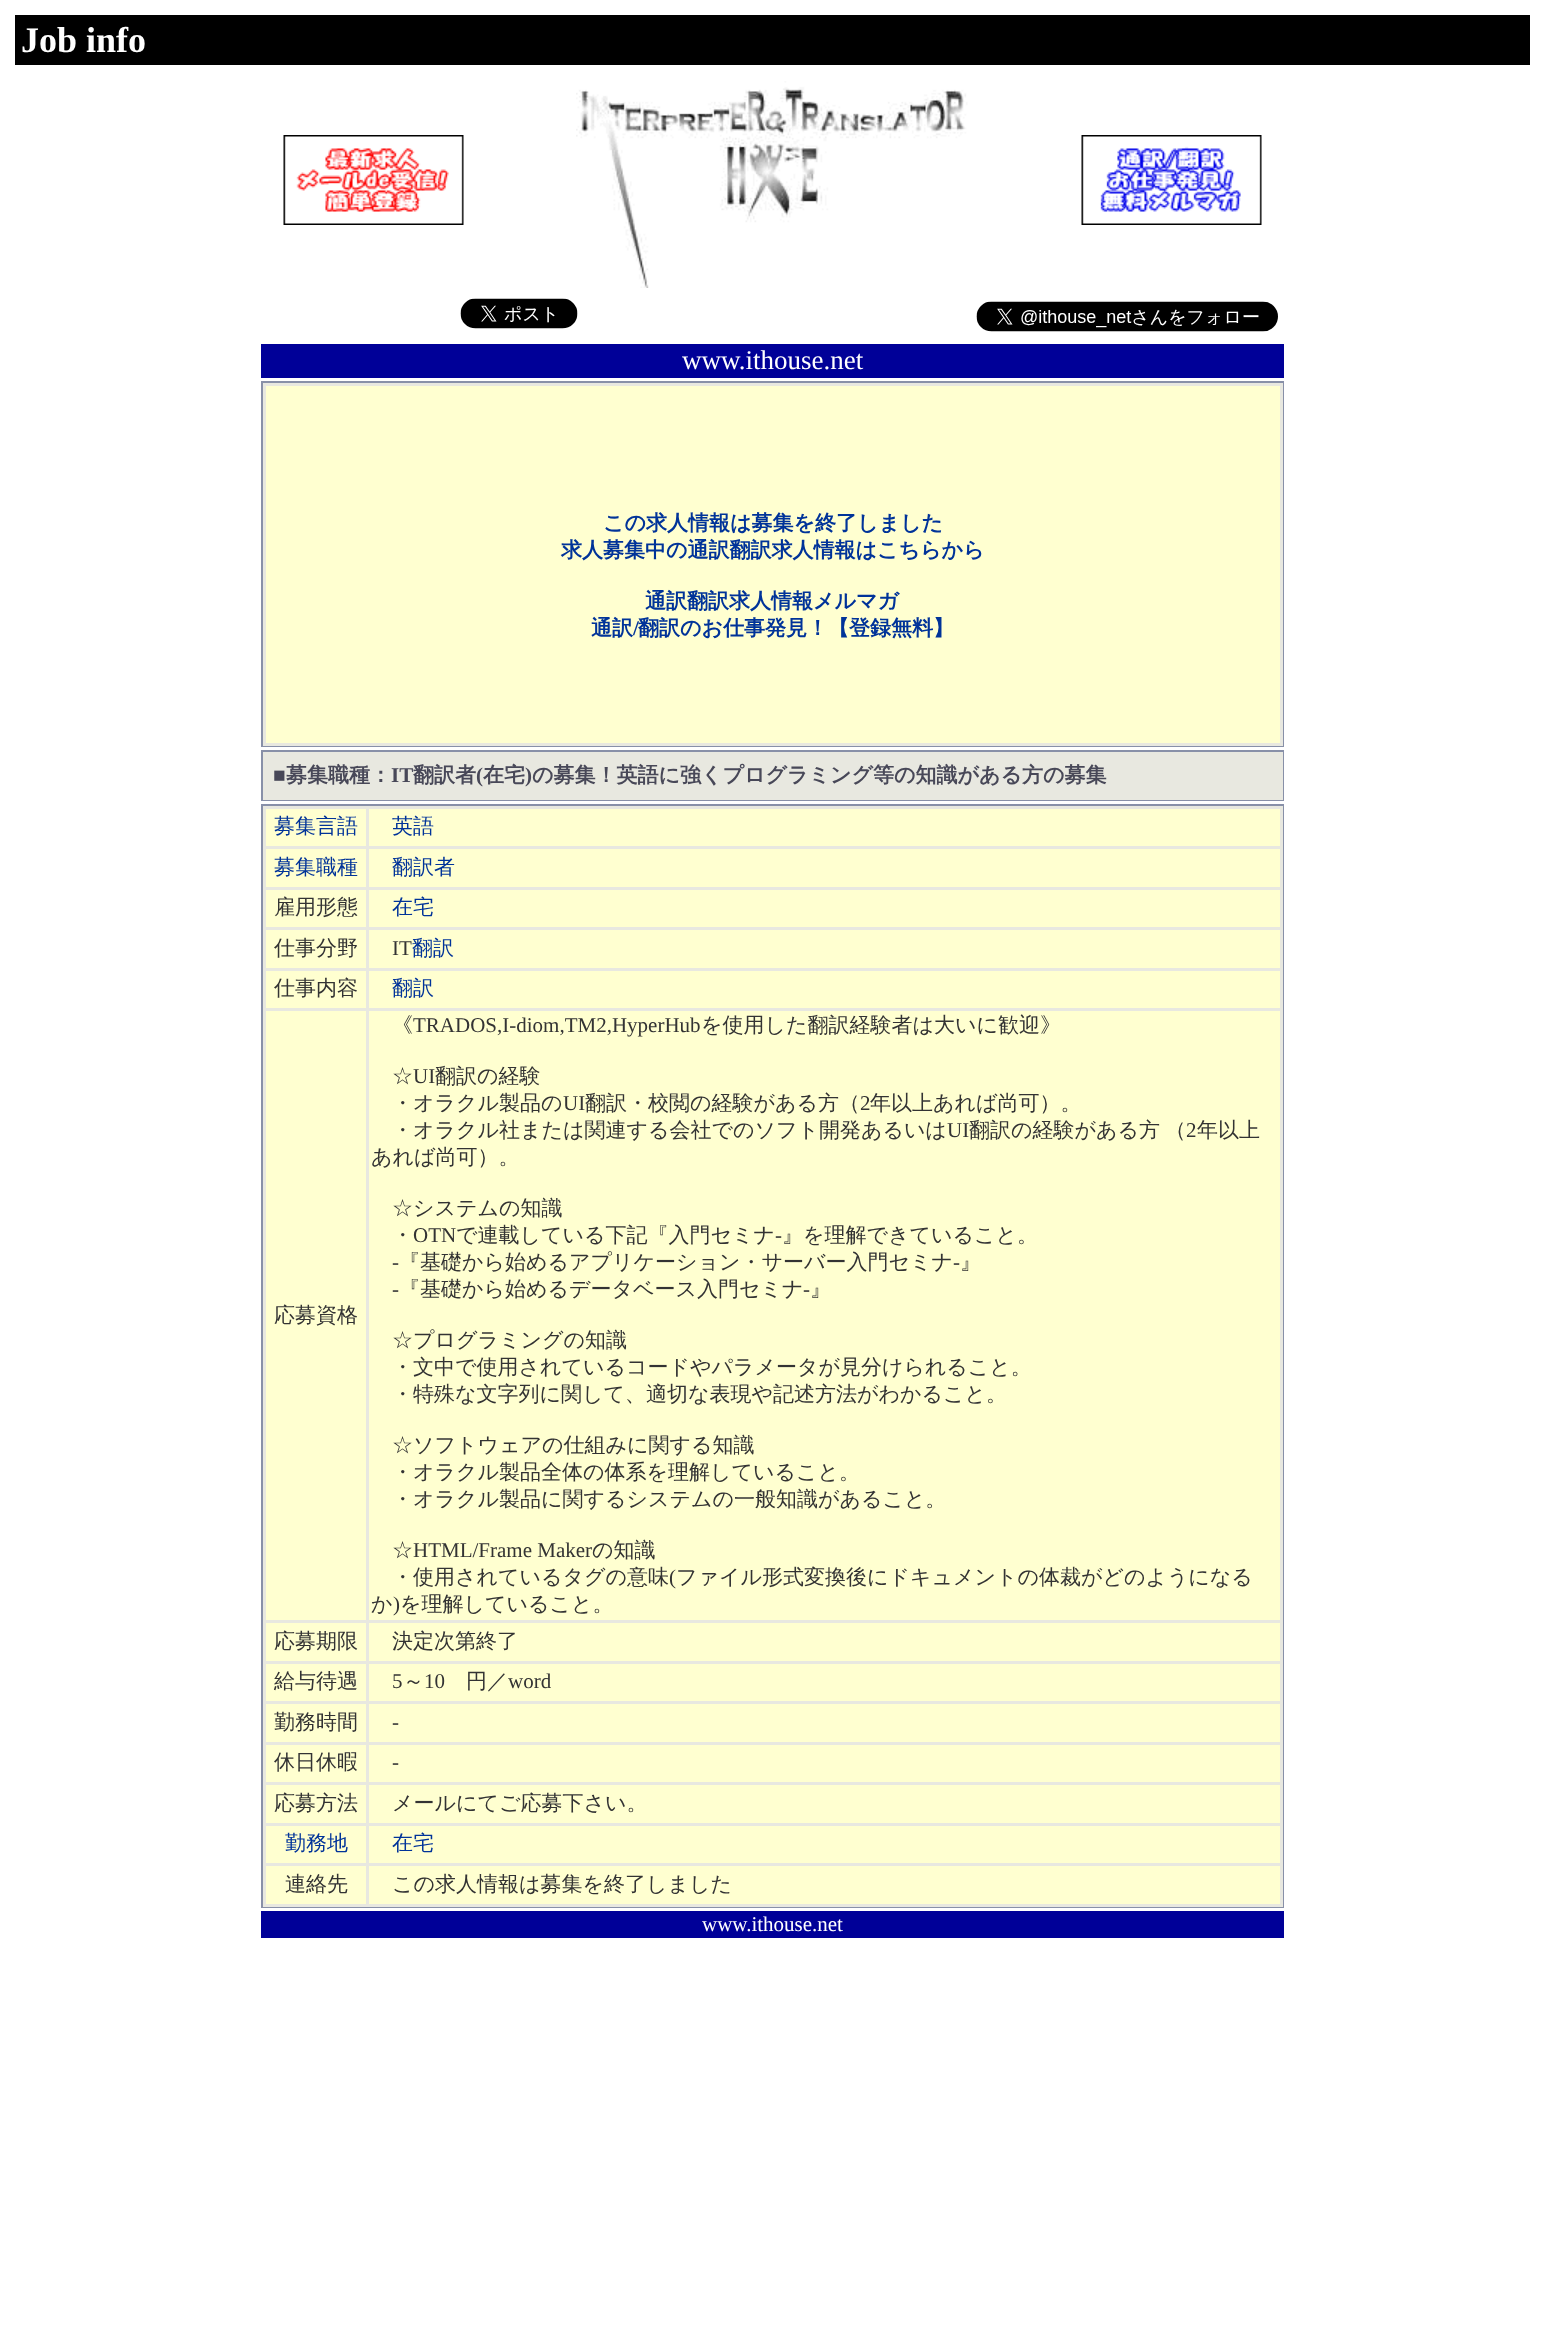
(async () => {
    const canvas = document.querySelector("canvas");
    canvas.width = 1545;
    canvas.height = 2334;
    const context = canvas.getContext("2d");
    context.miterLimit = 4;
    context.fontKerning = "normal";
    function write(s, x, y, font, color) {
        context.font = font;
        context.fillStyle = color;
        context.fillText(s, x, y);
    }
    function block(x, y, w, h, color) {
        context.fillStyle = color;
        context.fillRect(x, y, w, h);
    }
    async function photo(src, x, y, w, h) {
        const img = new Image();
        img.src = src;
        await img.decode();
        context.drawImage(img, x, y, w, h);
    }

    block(0, 0, 1545, 2334, "rgb(255, 255, 255)");
    block(15, 15, 1515, 50, "rgb(0, 0, 0)");
    write("Job info", 21, 52, "bold 36px Liberation Serif", "rgb(255, 255, 255)");
    await photo("media/1.png", 283, 135, 181, 90);
    await photo("media/2.png", 576, 81, 392, 207);
    await photo("media/3.png", 1081, 135, 181, 90);
    await photo("media/4.png", 460, 298, 118, 31);
    await photo("media/5.png", 976, 301, 302, 31);
    block(261, 344, 1023, 34, "rgb(0, 0, 152)");
    write("www.ithouse.net", 682, 369, "27px Liberation Serif", "rgb(255, 255, 255)");
    block(261, 381, 1023, 366, "rgb(136, 144, 168)");
    block(263, 383, 1020, 363, "rgb(232, 232, 224)");
    block(266, 386, 1014, 357, "rgb(255, 255, 208)");
    write("この求人情報は募集を終了しました", 603, 530, "bold 21px WenQuanYi Zen Hei", "rgb(0, 51, 153)");
    write("求人募集中の通訳翻訳求人情報はこちらから", 561, 557, "bold 21px WenQuanYi Zen Hei", "rgb(0, 51, 153)");
    write("通訳翻訳求人情報メルマガ", 645, 608, "bold 21px WenQuanYi Zen Hei", "rgb(0, 51, 153)");
    write("通訳", 591, 635, "bold 21px WenQuanYi Zen Hei", "rgb(0, 51, 153)");
    write("/", 633, 635, "bold 21px Liberation Serif", "rgb(0, 51, 153)");
    write("翻訳のお仕事発見！【登録無料】", 638, 635, "bold 21px WenQuanYi Zen Hei", "rgb(0, 51, 153)");
    block(261, 750, 1023, 51, "rgb(136, 144, 168)");
    block(263, 752, 1020, 48, "rgb(232, 232, 224)");
    write("■", 273, 782, "bold 21px Liberation Serif", "rgb(72, 72, 88)");
    write("募集職種：", 286, 782, "bold 21px WenQuanYi Zen Hei", "rgb(72, 72, 88)");
    write("IT", 391, 782, "bold 21px Liberation Serif", "rgb(72, 72, 88)");
    write("翻訳者", 413, 782, "bold 21px WenQuanYi Zen Hei", "rgb(72, 72, 88)");
    write("(", 476, 782, "bold 21px Liberation Serif", "rgb(72, 72, 88)");
    write("在宅", 483, 782, "bold 21px WenQuanYi Zen Hei", "rgb(72, 72, 88)");
    write(")", 525, 782, "bold 21px Liberation Serif", "rgb(72, 72, 88)");
    write("の募集！英語に強くプログラミング等の知識がある方の募集", 532, 782, "bold 21px WenQuanYi Zen Hei", "rgb(72, 72, 88)");
    block(261, 804, 1023, 1104, "rgb(136, 144, 168)");
    block(263, 806, 1020, 1101, "rgb(232, 232, 224)");
    block(266, 809, 100, 37, "rgb(255, 255, 208)");
    write("募集言語", 274, 833, "500 21px WenQuanYi Zen Hei", "rgb(0, 51, 153)");
    block(369, 809, 911, 37, "rgb(255, 255, 208)");
    write("英語", 392, 833, "500 21px WenQuanYi Zen Hei", "rgb(0, 51, 153)");
    block(266, 849, 100, 38, "rgb(255, 255, 208)");
    write("募集職種", 274, 874, "500 21px WenQuanYi Zen Hei", "rgb(0, 51, 153)");
    block(369, 849, 911, 38, "rgb(255, 255, 208)");
    write("翻訳者", 392, 874, "500 21px WenQuanYi Zen Hei", "rgb(0, 51, 153)");
    block(266, 890, 100, 37, "rgb(255, 255, 208)");
    write("雇用形態", 274, 914, "500 21px WenQuanYi Zen Hei", "rgb(51, 51, 51)");
    block(369, 890, 911, 37, "rgb(255, 255, 208)");
    write("在宅", 392, 914, "500 21px WenQuanYi Zen Hei", "rgb(0, 51, 153)");
    block(266, 930, 100, 38, "rgb(255, 255, 208)");
    write("仕事分野", 274, 955, "500 21px WenQuanYi Zen Hei", "rgb(51, 51, 51)");
    block(369, 930, 911, 38, "rgb(255, 255, 208)");
    write("IT", 392, 955, "21px Liberation Serif", "rgb(51, 51, 51)");
    write("翻訳", 412, 955, "500 21px WenQuanYi Zen Hei", "rgb(0, 51, 153)");
    block(266, 971, 100, 37, "rgb(255, 255, 208)");
    write("仕事内容", 274, 995, "500 21px WenQuanYi Zen Hei", "rgb(51, 51, 51)");
    block(369, 971, 911, 37, "rgb(255, 255, 208)");
    write("翻訳", 392, 995, "500 21px WenQuanYi Zen Hei", "rgb(0, 51, 153)");
    block(266, 1011, 100, 609, "rgb(255, 255, 208)");
    write("応募資格", 274, 1322, "500 21px WenQuanYi Zen Hei", "rgb(51, 51, 51)");
    block(369, 1011, 911, 609, "rgb(255, 255, 208)");
    write("《", 392, 1032, "500 21px WenQuanYi Zen Hei", "rgb(51, 51, 51)");
    write("TRADOS,I-diom,TM2,HyperHub", 413, 1032, "21px Liberation Serif", "rgb(51, 51, 51)");
    write("を使用した翻訳経験者は大いに歓迎》", 701, 1032, "500 21px WenQuanYi Zen Hei", "rgb(51, 51, 51)");
    write("☆", 392, 1083, "500 21px WenQuanYi Zen Hei", "rgb(51, 51, 51)");
    write("UI", 413, 1083, "21px Liberation Serif", "rgb(51, 51, 51)");
    write("翻訳の経験", 435, 1083, "500 21px WenQuanYi Zen Hei", "rgb(51, 51, 51)");
    write("・オラクル製品の", 392, 1110, "500 21px WenQuanYi Zen Hei", "rgb(51, 51, 51)");
    write("UI", 563, 1110, "21px Liberation Serif", "rgb(51, 51, 51)");
    write("翻訳・校閲の経験がある方（", 585, 1110, "500 21px WenQuanYi Zen Hei", "rgb(51, 51, 51)");
    write("2", 860, 1110, "21px Liberation Serif", "rgb(51, 51, 51)");
    write("年以上あれば尚可）。", 870, 1110, "500 21px WenQuanYi Zen Hei", "rgb(51, 51, 51)");
    write("・オラクル社または関連する会社でのソフト開発あるいは", 392, 1137, "500 21px WenQuanYi Zen Hei", "rgb(51, 51, 51)");
    write("UI", 947, 1137, "21px Liberation Serif", "rgb(51, 51, 51)");
    write("翻訳の経験がある方", 969, 1137, "500 21px WenQuanYi Zen Hei", "rgb(51, 51, 51)");
    write("（", 1165, 1137, "500 21px WenQuanYi Zen Hei", "rgb(51, 51, 51)");
    write("2", 1186, 1137, "21px Liberation Serif", "rgb(51, 51, 51)");
    write("年以上", 1197, 1137, "500 21px WenQuanYi Zen Hei", "rgb(51, 51, 51)");
    write("あれば尚可）。", 371, 1164, "500 21px WenQuanYi Zen Hei", "rgb(51, 51, 51)");
    write("☆システムの知識", 392, 1215, "500 21px WenQuanYi Zen Hei", "rgb(51, 51, 51)");
    write("・", 392, 1242, "500 21px WenQuanYi Zen Hei", "rgb(51, 51, 51)");
    write("OTN", 413, 1242, "21px Liberation Serif", "rgb(51, 51, 51)");
    write("で連載している下記『入門セミナ", 456, 1242, "500 21px WenQuanYi Zen Hei", "rgb(51, 51, 51)");
    write("-", 775, 1242, "21px Liberation Serif", "rgb(51, 51, 51)");
    write("』を理解できていること。", 782, 1242, "500 21px WenQuanYi Zen Hei", "rgb(51, 51, 51)");
    write("-", 392, 1269, "21px Liberation Serif", "rgb(51, 51, 51)");
    write("『基礎から始めるアプリケーション・サーバー入門セミナ", 399, 1269, "500 21px WenQuanYi Zen Hei", "rgb(51, 51, 51)");
    write("-", 953, 1269, "21px Liberation Serif", "rgb(51, 51, 51)");
    write("』", 960, 1269, "500 21px WenQuanYi Zen Hei", "rgb(51, 51, 51)");
    write("-", 392, 1296, "21px Liberation Serif", "rgb(51, 51, 51)");
    write("『基礎から始めるデータベース入門セミナ", 399, 1296, "500 21px WenQuanYi Zen Hei", "rgb(51, 51, 51)");
    write("-", 803, 1296, "21px Liberation Serif", "rgb(51, 51, 51)");
    write("』", 810, 1296, "500 21px WenQuanYi Zen Hei", "rgb(51, 51, 51)");
    write("☆プログラミングの知識", 392, 1347, "500 21px WenQuanYi Zen Hei", "rgb(51, 51, 51)");
    write("・文中で使用されているコードやパラメータが見分けられること。", 392, 1374, "500 21px WenQuanYi Zen Hei", "rgb(51, 51, 51)");
    write("・特殊な文字列に関して、適切な表現や記述方法がわかること。", 392, 1401, "500 21px WenQuanYi Zen Hei", "rgb(51, 51, 51)");
    write("☆ソフトウェアの仕組みに関する知識", 392, 1452, "500 21px WenQuanYi Zen Hei", "rgb(51, 51, 51)");
    write("・オラクル製品全体の体系を理解していること。", 392, 1479, "500 21px WenQuanYi Zen Hei", "rgb(51, 51, 51)");
    write("・オラクル製品に関するシステムの一般知識があること。", 392, 1506, "500 21px WenQuanYi Zen Hei", "rgb(51, 51, 51)");
    write("☆", 392, 1557, "500 21px WenQuanYi Zen Hei", "rgb(51, 51, 51)");
    write("HTML/Frame Maker", 413, 1557, "21px Liberation Serif", "rgb(51, 51, 51)");
    write("の知識", 592, 1557, "500 21px WenQuanYi Zen Hei", "rgb(51, 51, 51)");
    write("・使用されているタグの意味", 392, 1584, "500 21px WenQuanYi Zen Hei", "rgb(51, 51, 51)");
    write("(", 669, 1584, "21px Liberation Serif", "rgb(51, 51, 51)");
    write("ファイル形式変換後にドキュメントの体裁がどのようになる", 676, 1584, "500 21px WenQuanYi Zen Hei", "rgb(51, 51, 51)");
    write("か", 371, 1611, "500 21px WenQuanYi Zen Hei", "rgb(51, 51, 51)");
    write(")", 393, 1611, "21px Liberation Serif", "rgb(51, 51, 51)");
    write("を理解していること。", 400, 1611, "500 21px WenQuanYi Zen Hei", "rgb(51, 51, 51)");
    block(266, 1623, 100, 38, "rgb(255, 255, 208)");
    write("応募期限", 274, 1648, "500 21px WenQuanYi Zen Hei", "rgb(51, 51, 51)");
    block(369, 1623, 911, 38, "rgb(255, 255, 208)");
    write("決定次第終了", 392, 1648, "500 21px WenQuanYi Zen Hei", "rgb(51, 51, 51)");
    block(266, 1664, 100, 37, "rgb(255, 255, 208)");
    write("給与待遇", 274, 1688, "500 21px WenQuanYi Zen Hei", "rgb(51, 51, 51)");
    block(369, 1664, 911, 37, "rgb(255, 255, 208)");
    write("5", 392, 1688, "21px Liberation Serif", "rgb(51, 51, 51)");
    write("～", 403, 1688, "500 21px WenQuanYi Zen Hei", "rgb(51, 51, 51)");
    write("10", 424, 1688, "21px Liberation Serif", "rgb(51, 51, 51)");
    write("円／", 466, 1688, "500 21px WenQuanYi Zen Hei", "rgb(51, 51, 51)");
    write("word", 508, 1688, "21px Liberation Serif", "rgb(51, 51, 51)");
    block(266, 1704, 100, 38, "rgb(255, 255, 208)");
    write("勤務時間", 274, 1729, "500 21px WenQuanYi Zen Hei", "rgb(51, 51, 51)");
    block(369, 1704, 911, 38, "rgb(255, 255, 208)");
    write("-", 392, 1729, "21px Liberation Serif", "rgb(51, 51, 51)");
    block(266, 1745, 100, 37, "rgb(255, 255, 208)");
    write("休日休暇", 274, 1769, "500 21px WenQuanYi Zen Hei", "rgb(51, 51, 51)");
    block(369, 1745, 911, 37, "rgb(255, 255, 208)");
    write("-", 392, 1769, "21px Liberation Serif", "rgb(51, 51, 51)");
    block(266, 1785, 100, 38, "rgb(255, 255, 208)");
    write("応募方法", 274, 1810, "500 21px WenQuanYi Zen Hei", "rgb(51, 51, 51)");
    block(369, 1785, 911, 38, "rgb(255, 255, 208)");
    write("メールにてご応募下さい。", 392, 1810, "500 21px WenQuanYi Zen Hei", "rgb(51, 51, 51)");
    block(266, 1826, 100, 37, "rgb(255, 255, 208)");
    write("勤務地", 285, 1850, "500 21px WenQuanYi Zen Hei", "rgb(0, 51, 153)");
    block(369, 1826, 911, 37, "rgb(255, 255, 208)");
    write("在宅", 392, 1850, "500 21px WenQuanYi Zen Hei", "rgb(0, 51, 153)");
    block(266, 1866, 100, 38, "rgb(255, 255, 208)");
    write("連絡先", 285, 1891, "500 21px WenQuanYi Zen Hei", "rgb(51, 51, 51)");
    block(369, 1866, 911, 38, "rgb(255, 255, 208)");
    write("この求人情報は募集を終了しました", 392, 1891, "500 21px WenQuanYi Zen Hei", "rgb(51, 51, 51)");
    block(261, 1911, 1023, 27, "rgb(0, 0, 152)");
    write("www.ithouse.net", 702, 1931, "21px Liberation Serif", "rgb(255, 255, 255)");
})();
